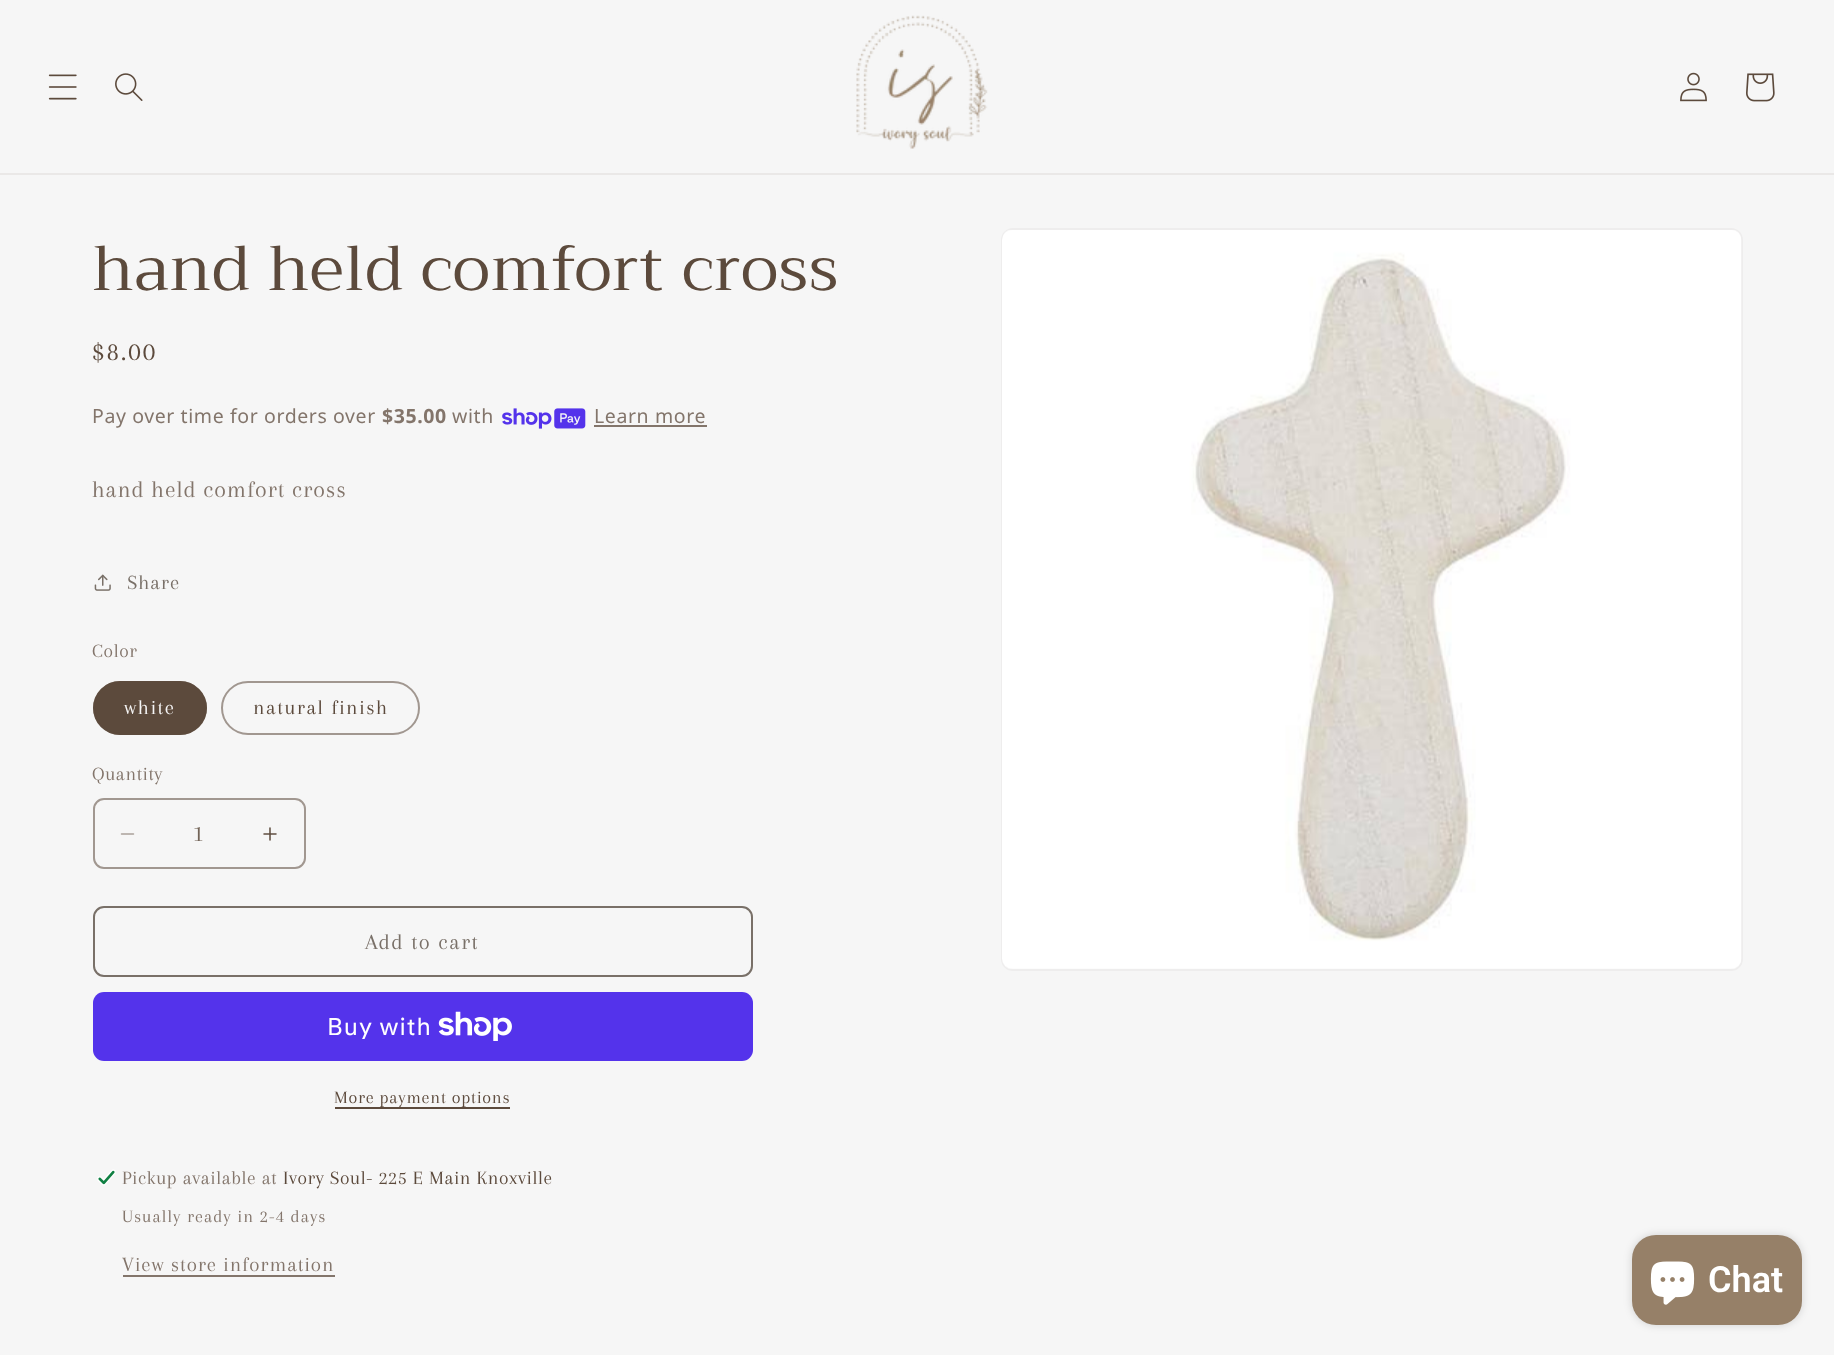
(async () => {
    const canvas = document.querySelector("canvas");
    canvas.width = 1834;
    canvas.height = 1355;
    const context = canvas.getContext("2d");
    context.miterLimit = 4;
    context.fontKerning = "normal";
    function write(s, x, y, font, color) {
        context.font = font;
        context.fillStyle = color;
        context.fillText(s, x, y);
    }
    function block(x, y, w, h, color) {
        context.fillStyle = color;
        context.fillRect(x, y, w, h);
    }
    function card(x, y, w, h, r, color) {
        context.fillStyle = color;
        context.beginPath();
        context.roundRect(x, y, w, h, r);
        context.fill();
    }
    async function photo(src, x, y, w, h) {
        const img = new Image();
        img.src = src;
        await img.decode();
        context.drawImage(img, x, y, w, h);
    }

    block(0, 0, 1834, 1355, "rgb(246, 246, 246)");
    block(0, 173, 1834, 2, "rgb(234, 232, 231)");
    await photo("media/1.png", 48, 74, 29, 26);
    await photo("media/2.png", 115, 73, 28, 28);
    await photo("media/3.png", 856, 15, 132, 134);
    await photo("media/4.png", 1680, 72, 27, 30);
    await photo("media/5.png", 1746, 73, 29, 29);
    context.letterSpacing = "0.95px";
    write("hand held comfort cross", 92, 290, "63px Trirong", "rgb(92, 74, 60)");
    context.letterSpacing = "2px";
    write("$8.00", 92, 360, "27px Arapey", "rgb(92, 74, 60)");
    context.letterSpacing = "0.6px";
    write("Pay over time for orders over", 92, 423, "19.5px Noto Sans", "rgb(131, 117, 107)");
    write("$35.00", 382, 423, "bold 19.5px Noto Sans", "rgb(131, 117, 107)");
    write("with", 452, 423, "19.5px Noto Sans", "rgb(131, 117, 107)");
    await photo("media/6.png", 502, 408, 84, 21);
    write("Learn more", 594, 423, "19.5px Noto Sans", "rgb(131, 117, 107)");
    block(594, 425, 113, 2, "rgb(131, 117, 107)");
    context.letterSpacing = "0.9px";
    write("hand held comfort cross", 92, 497, "24px Arapey", "rgb(131, 117, 107)");
    await photo("media/7.png", 94, 574, 17, 17);
    write("Share", 127, 589, "21px Arapey", "rgb(121, 112, 104)");
    context.letterSpacing = "0.6px";
    write("Color", 92, 657, "19.5px Arapey", "rgb(131, 117, 107)");
    card(93, 681, 114, 54, 27, "rgb(92, 74, 60)");
    context.beginPath();
    context.roundRect(94, 682, 112, 52, 26);
    context.strokeStyle = "rgba(92, 74, 60, 0.55)";
    context.lineWidth = 2;
    context.stroke();
    context.letterSpacing = "1.5px";
    write("white", 124, 714, "21px Arapey", "rgb(246, 246, 246)");
    context.beginPath();
    context.roundRect(222, 682, 197, 52, 26);
    context.strokeStyle = "rgb(161, 151, 144)";
    context.stroke();
    write("natural finish", 253, 714, "21px Arapey", "rgb(92, 74, 60)");
    context.letterSpacing = "0.6px";
    write("Quantity", 92, 780, "19.5px Arapey", "rgb(131, 117, 107)");
    await photo("media/8.png", 120, 833, 15, 2);
    await photo("media/9.png", 263, 827, 14, 14);
    context.beginPath();
    context.roundRect(94, 799, 211, 69, 10);
    context.stroke();
    context.letterSpacing = "0px";
    write("1", 193, 841, "24px Arapey", "rgb(115, 100, 88)");
    context.beginPath();
    context.roundRect(94, 907, 658, 69, 10);
    context.strokeStyle = "rgb(121, 112, 104)";
    context.stroke();
    context.letterSpacing = "1.5px";
    write("Add to cart", 365, 949, "22.5px Arapey", "rgb(121, 112, 104)");
    card(93, 992, 660, 69, 11, "rgb(84, 51, 235)");
    context.letterSpacing = "0.9px";
    write("Buy with", 327, 1035, "24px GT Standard", "rgb(255, 255, 255)");
    await photo("media/10.png", 438, 1011, 74, 30);
    block(335, 1107, 175, 2, "rgb(92, 74, 60)");
    context.letterSpacing = "0.75px";
    write("More payment options", 334, 1103, "18px Arapey", "rgb(92, 74, 60)");
    await photo("media/11.png", 97, 1169, 19, 17);
    context.letterSpacing = "0.6px";
    write("Pickup available at", 122, 1184, "19.5px Arapey", "rgb(131, 117, 107)");
    write("Ivory Soul- 225 E Main Knoxville", 283, 1184, "19.5px Arapey", "rgb(92, 74, 60)");
    context.letterSpacing = "1.05px";
    write("Usually ready in 2-4 days", 122, 1222, "18px Arapey", "rgb(131, 117, 107)");
    context.letterSpacing = "0.9px";
    write("View store information", 122, 1271, "21px Arapey", "rgb(131, 117, 107)");
    block(123, 1275, 212, 2, "rgb(131, 117, 107)");
    context.beginPath();
    context.roundRect(1002, 229, 740, 741, 11);
    context.strokeStyle = "rgb(238, 237, 237)";
    context.stroke();
    await photo("media/12.png", 1002, 230, 740, 739);
    context.fillStyle = "rgba(0, 0, 0, 0.15)";
    context.filter = "blur(4px)";
    context.beginPath();
    context.roundRect(1632, 1235, 170, 90, 24);
    context.fill();
    context.filter = "none";
    card(1632, 1235, 170, 90, 24, "rgb(150, 128, 104)");
    await photo("media/13.png", 1650, 1261, 45, 44);
    context.letterSpacing = "0px";
    write("Chat", 1708, 1292, "600 36px Roboto", "rgb(255, 255, 255)");
})();
